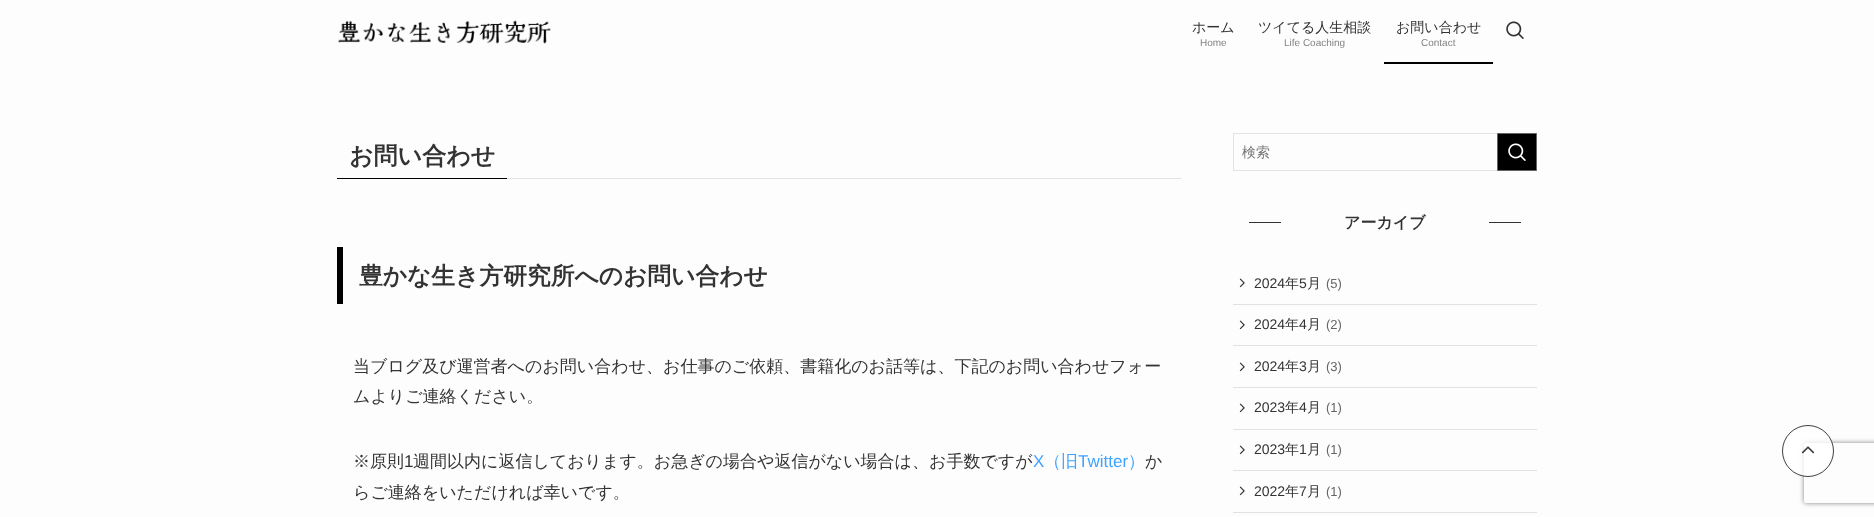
(async () => {
    const canvas = document.querySelector("canvas");
    canvas.width = 1874;
    canvas.height = 517;
    const context = canvas.getContext("2d");
    context.miterLimit = 4;
    context.fontKerning = "normal";
    function write(s, x, y, font, color) {
        context.font = font;
        context.fillStyle = color;
        context.fillText(s, x, y);
    }
    function block(x, y, w, h, color) {
        context.fillStyle = color;
        context.fillRect(x, y, w, h);
    }
    async function photo(src, x, y, w, h) {
        const img = new Image();
        img.src = src;
        await img.decode();
        context.drawImage(img, x, y, w, h);
    }

    block(0, 0, 1874, 517, "rgb(253, 253, 253)");
    await photo("media/1.png", 338, 20, 213, 24);
    write("ホーム", 1192, 32, "500 14px WenQuanYi Zen Hei", "rgb(51, 51, 51)");
    write("Home", 1200, 46, "10px Liberation Sans", "rgb(132, 132, 132)");
    write("ツイてる人生相談", 1258, 32, "500 14px WenQuanYi Zen Hei", "rgb(51, 51, 51)");
    write("Life Coaching", 1284, 46, "10px Liberation Sans", "rgb(132, 132, 132)");
    write("お問い合わせ", 1396, 32, "500 14px WenQuanYi Zen Hei", "rgb(51, 51, 51)");
    write("Contact", 1421, 46, "10px Liberation Sans", "rgb(132, 132, 132)");
    block(1384, 62, 109, 2, "rgb(0, 0, 0)");
    await photo("media/2.png", 1506, 21, 18, 18);
    block(507, 178, 674, 1, "rgb(226, 226, 226)");
    block(337, 178, 170, 1, "rgb(0, 0, 0)");
    write("お問い合わせ", 349, 164, "bold 24px WenQuanYi Zen Hei", "rgb(51, 51, 51)");
    block(337, 247, 6, 57, "rgb(0, 0, 0)");
    write("豊かな生き方研究所へのお問い合わせ", 359, 284, "bold 23.75px WenQuanYi Zen Hei", "rgb(51, 51, 51)");
    write("当ブログ及び運営者へのお問い合わせ、お仕事のご依頼、書籍化のお話等は、下記のお問い合わせフォー", 353, 372, "500 17px WenQuanYi Zen Hei", "rgb(51, 51, 51)");
    write("ムよりご連絡ください。", 353, 402, "500 17px WenQuanYi Zen Hei", "rgb(51, 51, 51)");
    write("※原則", 353, 467, "500 17px WenQuanYi Zen Hei", "rgb(51, 51, 51)");
    write("1", 404, 467, "17px Liberation Sans", "rgb(51, 51, 51)");
    write("週間以内に返信しております。お急ぎの場合や返信がない場合は、お手数ですが", 413, 467, "500 17px WenQuanYi Zen Hei", "rgb(51, 51, 51)");
    write("X", 1033, 467, "17px Liberation Sans", "rgb(63, 163, 255)");
    write("（旧", 1044, 467, "500 17px WenQuanYi Zen Hei", "rgb(63, 163, 255)");
    write("Twitter", 1078, 467, "17px Liberation Sans", "rgb(63, 163, 255)");
    write("）", 1128, 467, "500 17px WenQuanYi Zen Hei", "rgb(63, 163, 255)");
    write("か", 1145, 467, "500 17px WenQuanYi Zen Hei", "rgb(51, 51, 51)");
    write("らご連絡をいただければ幸いです。", 353, 498, "500 17px WenQuanYi Zen Hei", "rgb(51, 51, 51)");
    context.strokeStyle = "rgb(227, 227, 227)";
    context.strokeRect(1233.5, 133.5, 303, 37);
    write("検索", 1242, 157, "500 14px WenQuanYi Zen Hei", "rgb(117, 117, 117)");
    context.fillStyle = "rgb(0, 0, 0)";
    context.beginPath();
    context.rect(1497.5, 133.5, 39, 37);
    context.fill();
    context.strokeStyle = "rgb(100, 100, 100)";
    context.stroke();
    await photo("media/3.png", 1508, 143, 18, 18);
    block(1249, 222, 32, 1, "rgb(51, 51, 51)");
    write("アーカイブ", 1344, 228, "bold 16px WenQuanYi Zen Hei", "rgb(51, 51, 51)");
    block(1489, 222, 32, 1, "rgb(51, 51, 51)");
    block(1233, 304, 304, 1, "rgb(226, 226, 226)");
    await photo("media/4.png", 1239, 278, 6, 10);
    write("2024", 1254, 288, "14px Liberation Sans", "rgb(51, 51, 51)");
    write("年", 1285, 288, "500 14px WenQuanYi Zen Hei", "rgb(51, 51, 51)");
    write("5", 1299, 288, "14px Liberation Sans", "rgb(51, 51, 51)");
    write("月", 1307, 288, "500 14px WenQuanYi Zen Hei", "rgb(51, 51, 51)");
    write("(5)", 1326, 288, "13px Liberation Sans", "rgb(102, 102, 102)");
    block(1233, 345, 304, 1, "rgb(226, 226, 226)");
    await photo("media/4.png", 1239, 320, 6, 10);
    write("2024", 1254, 329, "14px Liberation Sans", "rgb(51, 51, 51)");
    write("年", 1285, 329, "500 14px WenQuanYi Zen Hei", "rgb(51, 51, 51)");
    write("4", 1299, 329, "14px Liberation Sans", "rgb(51, 51, 51)");
    write("月", 1307, 329, "500 14px WenQuanYi Zen Hei", "rgb(51, 51, 51)");
    write("(2)", 1326, 329, "13px Liberation Sans", "rgb(102, 102, 102)");
    block(1233, 387, 304, 1, "rgb(226, 226, 226)");
    await photo("media/4.png", 1239, 362, 6, 10);
    write("2024", 1254, 371, "14px Liberation Sans", "rgb(51, 51, 51)");
    write("年", 1285, 371, "500 14px WenQuanYi Zen Hei", "rgb(51, 51, 51)");
    write("3", 1299, 371, "14px Liberation Sans", "rgb(51, 51, 51)");
    write("月", 1307, 371, "500 14px WenQuanYi Zen Hei", "rgb(51, 51, 51)");
    write("(3)", 1326, 371, "13px Liberation Sans", "rgb(102, 102, 102)");
    block(1233, 429, 304, 1, "rgb(226, 226, 226)");
    await photo("media/4.png", 1239, 403, 6, 10);
    write("2023", 1254, 412, "14px Liberation Sans", "rgb(51, 51, 51)");
    write("年", 1285, 412, "500 14px WenQuanYi Zen Hei", "rgb(51, 51, 51)");
    write("4", 1299, 412, "14px Liberation Sans", "rgb(51, 51, 51)");
    write("月", 1307, 412, "500 14px WenQuanYi Zen Hei", "rgb(51, 51, 51)");
    write("(1)", 1326, 412, "13px Liberation Sans", "rgb(102, 102, 102)");
    block(1233, 470, 304, 1, "rgb(226, 226, 226)");
    await photo("media/4.png", 1239, 445, 6, 10);
    write("2023", 1254, 454, "14px Liberation Sans", "rgb(51, 51, 51)");
    write("年", 1285, 454, "500 14px WenQuanYi Zen Hei", "rgb(51, 51, 51)");
    write("1", 1299, 454, "14px Liberation Sans", "rgb(51, 51, 51)");
    write("月", 1307, 454, "500 14px WenQuanYi Zen Hei", "rgb(51, 51, 51)");
    write("(1)", 1326, 454, "13px Liberation Sans", "rgb(102, 102, 102)");
    block(1233, 512, 304, 1, "rgb(226, 226, 226)");
    await photo("media/4.png", 1239, 486, 6, 10);
    write("2022", 1254, 496, "14px Liberation Sans", "rgb(51, 51, 51)");
    write("年", 1285, 496, "500 14px WenQuanYi Zen Hei", "rgb(51, 51, 51)");
    write("7", 1299, 496, "14px Liberation Sans", "rgb(51, 51, 51)");
    write("月", 1307, 496, "500 14px WenQuanYi Zen Hei", "rgb(51, 51, 51)");
    write("(1)", 1326, 496, "13px Liberation Sans", "rgb(102, 102, 102)");
    context.save();
    context.beginPath();
    context.moveTo(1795, 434);
    context.lineTo(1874, 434);
    context.lineTo(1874, 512);
    context.lineTo(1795, 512);
    context.closePath();
    context.moveTo(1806, 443);
    context.lineTo(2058, 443);
    context.bezierCurveTo(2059, 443, 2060, 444, 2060, 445);
    context.lineTo(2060, 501);
    context.bezierCurveTo(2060, 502, 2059, 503, 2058, 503);
    context.lineTo(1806, 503);
    context.bezierCurveTo(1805, 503, 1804, 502, 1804, 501);
    context.lineTo(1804, 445);
    context.bezierCurveTo(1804, 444, 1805, 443, 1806, 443);
    context.closePath();
    context.clip("evenodd");
    context.fillStyle = "rgb(128, 128, 128)";
    context.filter = "blur(2.5px)";
    context.beginPath();
    context.roundRect(1804, 443, 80, 60, 2);
    context.fill();
    context.filter = "none";
    context.restore();
    context.fillStyle = "rgba(255, 255, 255, 0.75)";
    context.beginPath();
    context.arc(1808, 451, 26, 0, Math.PI * 2);
    context.fill();
    context.beginPath();
    context.arc(1808, 451, 25.5, 0, Math.PI * 2);
    context.strokeStyle = "rgba(0, 0, 0, 0.75)";
    context.stroke();
    await photo("media/5.png", 1801, 446, 14, 8);
})();
